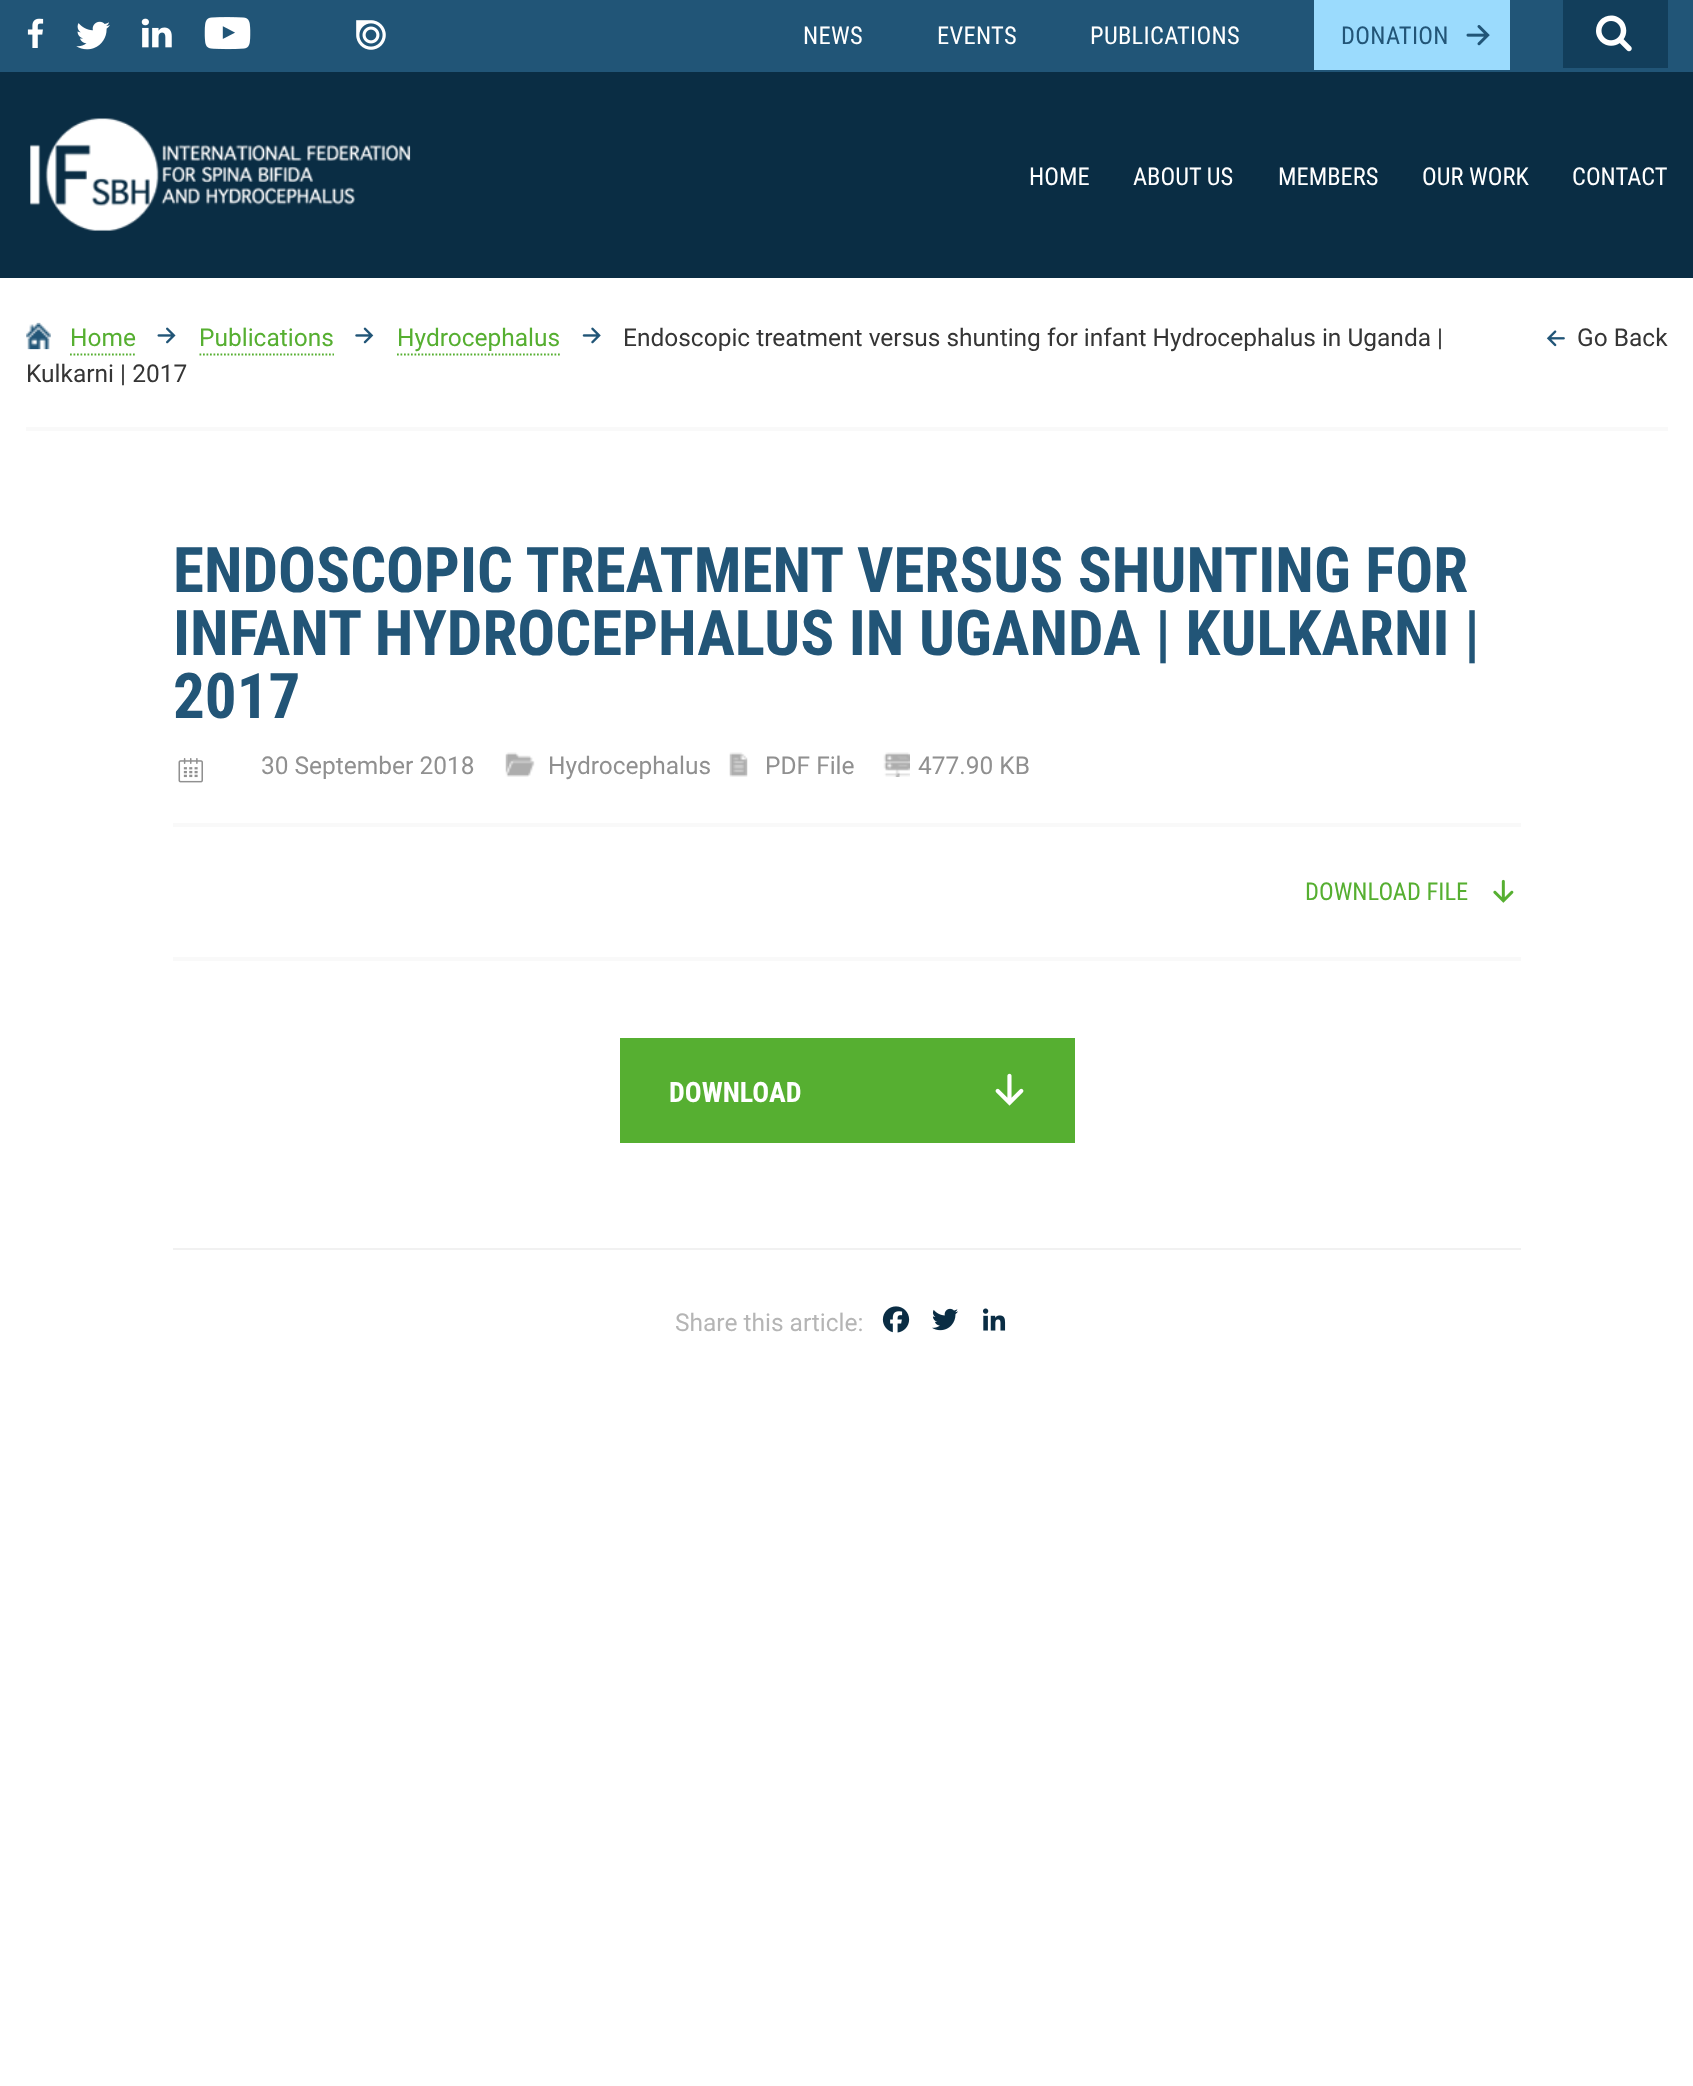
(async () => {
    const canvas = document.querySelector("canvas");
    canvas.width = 1693;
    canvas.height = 2086;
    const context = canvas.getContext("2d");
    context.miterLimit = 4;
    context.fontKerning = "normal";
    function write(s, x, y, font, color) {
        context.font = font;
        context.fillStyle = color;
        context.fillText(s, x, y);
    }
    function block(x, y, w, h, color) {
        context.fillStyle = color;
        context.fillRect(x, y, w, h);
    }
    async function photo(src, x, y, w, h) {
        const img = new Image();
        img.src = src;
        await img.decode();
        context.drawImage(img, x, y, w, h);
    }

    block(0, 0, 1693, 2086, "rgb(255, 255, 255)");
    block(0, 0, 1693, 72, "rgb(33, 85, 119)");
    await photo("media/1.png", 27, 18, 17, 30);
    await photo("media/2.png", 76, 21, 34, 29);
    await photo("media/3.png", 141, 18, 31, 30);
    await photo("media/4.png", 204, 17, 47, 33);
    await photo("media/5.png", 356, 20, 30, 30);
    context.letterSpacing = "0.3px";
    write("NEWS", 803, 44, "24.5px Roboto Condensed", "rgb(255, 255, 255)");
    write("EVENTS", 937, 44, "24.5px Roboto Condensed", "rgb(255, 255, 255)");
    write("PUBLICATIONS", 1090, 44, "24.5px Roboto Condensed", "rgb(255, 255, 255)");
    block(1314, 0, 196, 70, "rgb(155, 219, 253)");
    write("DONATION", 1341, 44, "24.5px Roboto Condensed", "rgb(34, 85, 119)");
    await photo("media/6.png", 1466, 25, 24, 21);
    block(1563, 0, 105, 68, "rgb(18, 62, 91)");
    await photo("media/7.png", 1596, 15, 36, 37);
    block(0, 72, 1693, 206, "rgb(10, 45, 68)");
    await photo("media/8.png", 30, 118, 381, 113);
    context.letterSpacing = "0px";
    write("HOME", 1029, 185, "24.5px Roboto Condensed", "rgb(255, 255, 255)");
    write("ABOUT US", 1133, 185, "24.5px Roboto Condensed", "rgb(255, 255, 255)");
    write("MEMBERS", 1278, 185, "24.5px Roboto Condensed", "rgb(255, 255, 255)");
    write("OUR WORK", 1422, 185, "24.5px Roboto Condensed", "rgb(255, 255, 255)");
    write("CONTACT", 1572, 185, "24.5px Roboto Condensed", "rgb(255, 255, 255)");
    await photo("media/9.png", 26, 322, 25, 28);
    write("Home", 70, 346, "24.5px Roboto", "rgb(86, 175, 49)");
    context.beginPath();
    context.moveTo(70, 354.5);
    context.lineTo(136.5, 354.5);
    context.strokeStyle = "rgb(86, 175, 49)";
    context.lineWidth = 1.8;
    context.setLineDash([1.75, 1.75]);
    context.stroke();
    await photo("media/10.png", 157, 327, 19, 17);
    write("Publications", 199, 346, "24.5px Roboto", "rgb(86, 175, 49)");
    context.beginPath();
    context.moveTo(199.5, 354.5);
    context.lineTo(334, 354.5);
    context.stroke();
    await photo("media/11.png", 355, 327, 19, 17);
    write("Hydrocephalus", 397, 346, "24.5px Roboto", "rgb(86, 175, 49)");
    context.beginPath();
    context.moveTo(397, 354.5);
    context.lineTo(560, 354.5);
    context.stroke();
    await photo("media/12.png", 582, 327, 19, 17);
    write("Endoscopic treatment versus shunting for infant Hydrocephalus in Uganda |", 623, 346, "24.5px Roboto", "rgb(53, 53, 53)");
    write("Kulkarni | 2017", 26, 382, "24.5px Roboto", "rgb(53, 53, 53)");
    await photo("media/13.png", 1546, 330, 19, 17);
    write("Go Back", 1577, 346, "24.5px Roboto", "rgb(53, 53, 53)");
    block(26, 427, 1642, 4, "rgb(249, 249, 249)");
    write("ENDOSCOPIC TREATMENT VERSUS SHUNTING FOR", 173, 592, "bold 63px Roboto Condensed", "rgb(34, 85, 119)");
    write("INFANT HYDROCEPHALUS IN UGANDA | KULKARNI |", 173, 655, "bold 63px Roboto Condensed", "rgb(34, 85, 119)");
    write("2017", 173, 718, "bold 63px Roboto Condensed", "rgb(34, 85, 119)");
    block(173, 823, 1348, 4, "rgb(249, 249, 249)");
    await photo("media/14.png", 178, 758, 25, 25);
    write("30 September 2018", 261, 774, "24.5px Roboto", "rgb(144, 144, 144)");
    await photo("media/15.png", 505, 752, 30, 25);
    write("Hydrocephalus", 548, 774, "24.5px Roboto", "rgb(144, 144, 144)");
    await photo("media/16.png", 729, 752, 19, 25);
    write("PDF File", 765, 774, "24.5px Roboto", "rgb(144, 144, 144)");
    await photo("media/17.png", 883, 752, 27, 25);
    write("477.90 KB", 918, 774, "24.5px Roboto", "rgb(144, 144, 144)");
    block(173, 957, 1348, 4, "rgb(249, 249, 249)");
    write("DOWNLOAD FILE", 1305, 900, "24.5px Roboto Condensed", "rgb(86, 175, 49)");
    await photo("media/18.png", 1493, 879, 21, 24);
    block(620, 1038, 455, 105, "rgb(86, 175, 49)");
    write("DOWNLOAD", 669, 1102, "bold 28px Roboto Condensed", "rgb(255, 255, 255)");
    await photo("media/19.png", 995, 1073, 29, 33);
    block(173, 1248, 1348, 2, "rgb(241, 241, 241)");
    write("Share this article:", 675, 1331, "24.5px Roboto", "rgb(181, 181, 181)");
    await photo("media/20.png", 882, 1306, 28, 27);
    await photo("media/21.png", 932, 1308, 26, 23);
    await photo("media/22.png", 983, 1308, 23, 23);
})();
